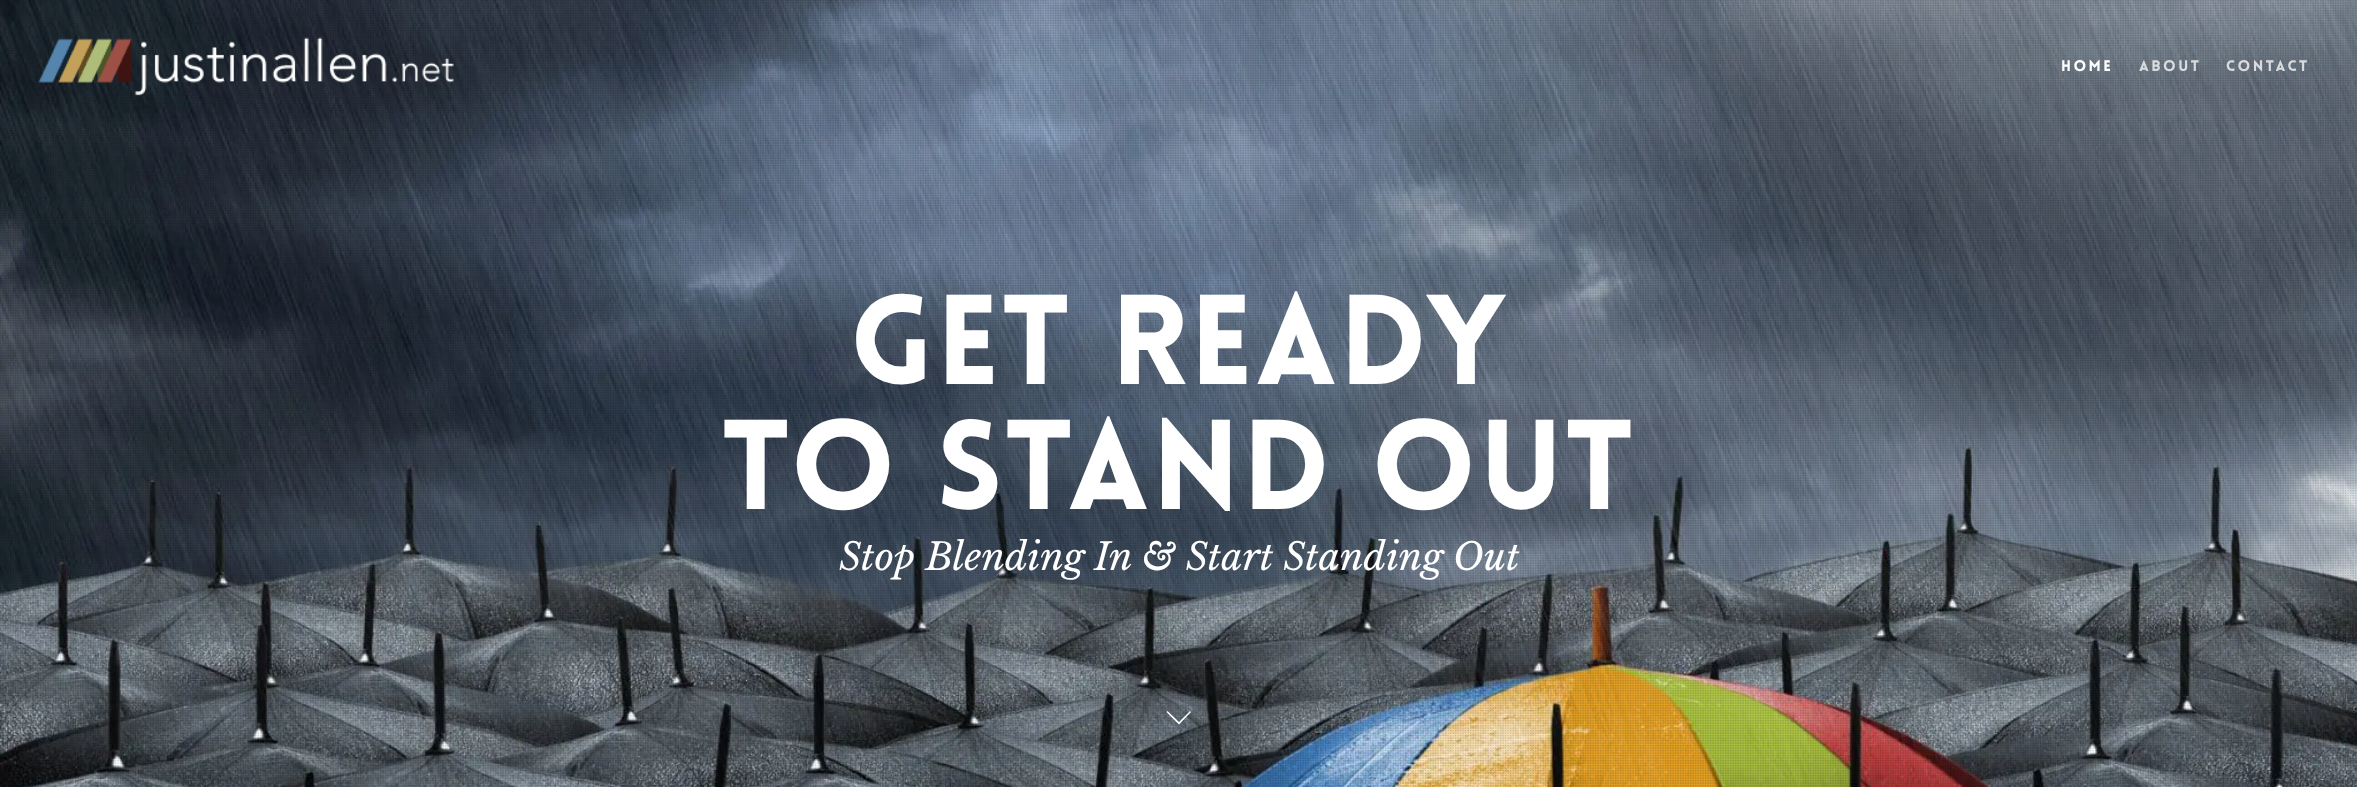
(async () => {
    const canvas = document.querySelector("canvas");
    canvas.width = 2357;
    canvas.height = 787;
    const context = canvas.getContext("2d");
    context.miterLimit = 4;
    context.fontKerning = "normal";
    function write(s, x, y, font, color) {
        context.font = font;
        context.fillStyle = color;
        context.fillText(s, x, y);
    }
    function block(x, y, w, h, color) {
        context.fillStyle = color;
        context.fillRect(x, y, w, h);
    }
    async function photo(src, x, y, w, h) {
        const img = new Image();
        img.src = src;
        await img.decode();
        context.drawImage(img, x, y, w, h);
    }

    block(0, 0, 2357, 787, "rgb(255, 255, 255)");
    await photo("media/2.png", 0, 0, 2357, 787);
    await photo("media/3.png", 0, 0, 2357, 787);
    await photo("media/1.png", 38, 37, 416, 59);
    context.letterSpacing = "2.5px";
    write("Home", 2061, 71, "900 15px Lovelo", "rgb(255, 255, 255)");
    write("About", 2139, 71, "900 15px Lovelo", "rgb(217, 219, 222)");
    write("Contact", 2226, 71, "900 15px Lovelo", "rgb(217, 219, 222)");
    write("GET READY", 850, 384, "900 125px Lovelo", "rgb(255, 255, 255)");
    write("TO STAND OUT", 722, 509, "900 125px Lovelo", "rgb(255, 255, 255)");
    context.letterSpacing = "0px";
    write("Stop Blending In & Start Standing Out", 839, 570, "italic 37.5px Libre Baskerville", "rgb(255, 255, 255)");
    context.beginPath();
    context.moveTo(1190, 711);
    context.lineTo(1191, 712);
    context.lineTo(1179, 724.5);
    context.lineTo(1166.5, 712);
    context.lineTo(1167.5, 711);
    context.lineTo(1179, 722);
    context.closePath();
    context.fill();
})();
